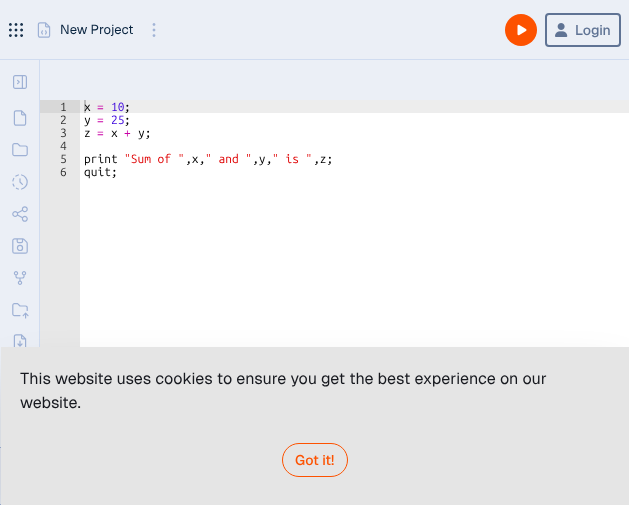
(async () => {
    const canvas = document.querySelector("canvas");
    canvas.width = 629;
    canvas.height = 505;
    const context = canvas.getContext("2d");
    context.miterLimit = 4;
    context.fontKerning = "normal";
    function write(s, x, y, font, color) {
        context.font = font;
        context.fillStyle = color;
        context.fillText(s, x, y);
    }
    function block(x, y, w, h, color) {
        context.fillStyle = color;
        context.fillRect(x, y, w, h);
    }
    async function photo(src, x, y, w, h) {
        const img = new Image();
        img.src = src;
        await img.decode();
        context.drawImage(img, x, y, w, h);
    }

    block(0, 0, 629, 505, "rgb(235, 239, 246)");
    block(0, 59, 629, 1, "rgb(208, 220, 240)");
    await photo("media/1.png", 9, 23, 14, 14);
    await photo("media/2.png", 37, 22, 14, 16);
    write("New Project", 60, 34, "13px Geist", "rgb(10, 37, 64)");
    await photo("media/3.png", 152, 23, 4, 14);
    context.fillStyle = "rgb(253, 82, 0)";
    context.beginPath();
    context.arc(521, 30, 16, 0, Math.PI * 2);
    context.fill();
    await photo("media/4.png", 517, 24, 10, 12);
    context.beginPath();
    context.roundRect(546, 14, 74, 32, 3);
    context.strokeStyle = "rgb(95, 115, 148)";
    context.lineWidth = 2;
    context.stroke();
    await photo("media/5.png", 555, 23, 13, 14);
    write("Login", 575, 35, "500 14px Geist", "rgb(95, 115, 148)");
    block(39, 60, 1, 287, "rgb(208, 220, 240)");
    await photo("media/6.png", 13, 75, 14, 14);
    await photo("media/7.png", 13, 110, 14, 16);
    await photo("media/8.png", 12, 143, 16, 14);
    await photo("media/9.png", 12, 174, 16, 16);
    await photo("media/10.png", 12, 206, 16, 16);
    await photo("media/11.png", 12, 238, 16, 16);
    await photo("media/12.png", 13, 271, 14, 14);
    await photo("media/13.png", 12, 303, 17, 16);
    await photo("media/14.png", 13, 334, 14, 13);
    block(80, 113, 549, 234, "rgb(255, 255, 255)");
    block(40, 113, 40, 234, "rgb(232, 232, 232)");
    block(40, 100, 40, 13, "rgb(216, 216, 216)");
    write("1", 60, 111, "12px Ubuntu Mono", "rgb(51, 51, 51)");
    write("2", 60, 124, "12px Ubuntu Mono", "rgb(51, 51, 51)");
    write("3", 60, 137, "12px Ubuntu Mono", "rgb(51, 51, 51)");
    write("4", 60, 150, "12px Ubuntu Mono", "rgb(51, 51, 51)");
    write("5", 60, 163, "12px Ubuntu Mono", "rgb(51, 51, 51)");
    write("6", 60, 176, "12px Ubuntu Mono", "rgb(51, 51, 51)");
    block(80, 100, 549, 13, "rgb(237, 237, 237)");
    write("x", 84, 111, "12px Ubuntu Mono", "rgb(0, 0, 0)");
    block(84, 100, 2, 13, "rgba(0, 0, 0, 0.2)");
    write("=", 97, 111, "12px Ubuntu Mono", "rgb(200, 0, 164)");
    write("10", 111, 111, "12px Ubuntu Mono", "rgb(58, 0, 220)");
    write(";", 124, 111, "12px Ubuntu Mono", "rgb(0, 0, 0)");
    write("y", 84, 124, "12px Ubuntu Mono", "rgb(0, 0, 0)");
    write("=", 97, 124, "12px Ubuntu Mono", "rgb(200, 0, 164)");
    write("25", 111, 124, "12px Ubuntu Mono", "rgb(58, 0, 220)");
    write(";", 124, 124, "12px Ubuntu Mono", "rgb(0, 0, 0)");
    write("z", 84, 137, "12px Ubuntu Mono", "rgb(0, 0, 0)");
    write("=", 97, 137, "12px Ubuntu Mono", "rgb(200, 0, 164)");
    write("x", 111, 137, "12px Ubuntu Mono", "rgb(0, 0, 0)");
    write("+", 124, 137, "12px Ubuntu Mono", "rgb(200, 0, 164)");
    write("y;", 138, 137, "12px Ubuntu Mono", "rgb(0, 0, 0)");
    write("print", 84, 163, "12px Ubuntu Mono", "rgb(0, 0, 0)");
    write("\"Sum of \"", 124, 163, "12px Ubuntu Mono", "rgb(223, 0, 2)");
    write(",x,", 185, 163, "12px Ubuntu Mono", "rgb(0, 0, 0)");
    write("\" and \"", 205, 163, "12px Ubuntu Mono", "rgb(223, 0, 2)");
    write(",y,", 252, 163, "12px Ubuntu Mono", "rgb(0, 0, 0)");
    write("\" is \"", 272, 163, "12px Ubuntu Mono", "rgb(223, 0, 2)");
    write(",z;", 313, 163, "12px Ubuntu Mono", "rgb(0, 0, 0)");
    write("quit;", 84, 176, "12px Ubuntu Mono", "rgb(0, 0, 0)");
    block(0, 447, 1, 1, "rgb(158, 177, 213)");
    block(0, 504, 1, 1, "rgb(158, 177, 213)");
    block(0, 448, 1, 56, "rgb(228, 233, 243)");
    context.fillStyle = "rgba(0, 0, 0, 0.25)";
    context.filter = "blur(25px)";
    context.beginPath();
    context.rect(13, 384, 605, 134);
    context.fill();
    context.filter = "none";
    block(1, 347, 628, 158, "rgb(229, 229, 229)");
    write("This website uses cookies to ensure you get the best experience on our", 20, 384, "16px Geist", "rgb(23, 25, 31)");
    write("website.", 20, 408, "16px Geist", "rgb(23, 25, 31)");
    context.beginPath();
    context.roundRect(282.5, 443.5, 65, 33, 16.5);
    context.strokeStyle = "rgb(253, 82, 0)";
    context.lineWidth = 1;
    context.stroke();
    write("Got it!", 295, 465, "500 14px Geist", "rgb(253, 82, 0)");
})();
